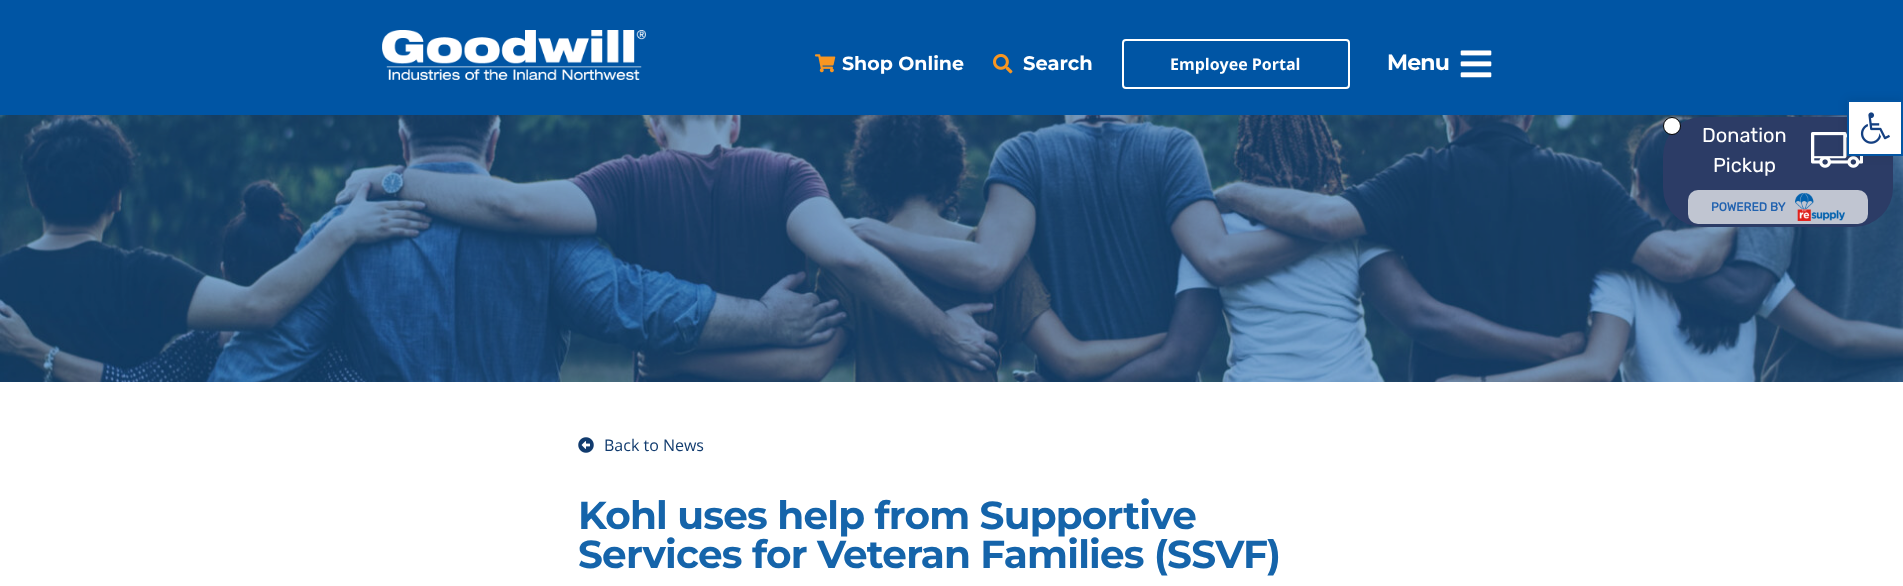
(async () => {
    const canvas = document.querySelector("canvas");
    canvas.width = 1903;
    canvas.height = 586;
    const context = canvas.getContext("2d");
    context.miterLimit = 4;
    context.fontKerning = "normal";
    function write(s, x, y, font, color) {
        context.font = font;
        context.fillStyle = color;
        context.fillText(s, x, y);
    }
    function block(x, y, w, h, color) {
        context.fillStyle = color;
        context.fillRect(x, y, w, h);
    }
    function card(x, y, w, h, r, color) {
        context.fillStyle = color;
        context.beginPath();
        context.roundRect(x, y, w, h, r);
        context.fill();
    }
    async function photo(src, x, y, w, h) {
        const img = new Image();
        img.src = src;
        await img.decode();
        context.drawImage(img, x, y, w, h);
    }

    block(0, 0, 1903, 586, "rgb(255, 255, 255)");
    block(0, 0, 1903, 115, "rgb(0, 85, 164)");
    await photo("media/1.png", 382, 30, 264, 50);
    await photo("media/2.png", 815, 54, 21, 19);
    write("Shop Online", 842, 70, "bold 19px Montserrat", "rgb(255, 255, 255)");
    await photo("media/3.png", 993, 53, 20, 21);
    write("Search", 1023, 70, "bold 19.5px Montserrat", "rgb(255, 255, 255)");
    context.beginPath();
    context.roundRect(1123, 40, 226, 48, 3);
    context.strokeStyle = "rgb(255, 255, 255)";
    context.lineWidth = 2;
    context.stroke();
    write("Employee Portal", 1170, 70, "bold 16px Open Sans", "rgb(255, 255, 255)");
    context.letterSpacing = "-0.8px";
    write("Menu", 1387, 70, "bold 22px Montserrat", "rgb(255, 255, 255)");
    await photo("media/4.png", 1460, 50, 32, 28);
    await photo("media/5.png", 0, 115, 1903, 267);
    await photo("media/6.png", 578, 437, 16, 16);
    context.letterSpacing = "0px";
    write("Back to News", 604, 451, "16px Open Sans", "rgb(17, 59, 110)");
    context.letterSpacing = "-0.8px";
    write("Kohl uses help from Supportive", 578, 529, "bold 39px Montserrat", "rgb(21, 100, 170)");
    write("Services for Veteran Families (SSVF)", 578, 568, "bold 39px Montserrat", "rgb(21, 100, 170)");
    card(1663, 117, 230, 110, 39, "rgb(44, 60, 102)");
    context.fillStyle = "rgb(255, 255, 255)";
    context.beginPath();
    context.arc(1672, 126, 8.5, 0, Math.PI * 2);
    context.fill();
    context.strokeStyle = "rgb(0, 0, 0)";
    context.lineWidth = 1;
    context.stroke();
    context.letterSpacing = "0px";
    write("Donation", 1702, 142, "20px Rubik", "rgb(255, 255, 255)");
    write("Pickup", 1713, 172, "20px Rubik", "rgb(255, 255, 255)");
    await photo("media/7.png", 1811, 132, 52, 36);
    card(1688, 190, 180, 34, 10, "rgb(192, 197, 209)");
    write("POWERED BY", 1711, 211, "bold 12px Rubik", "rgb(33, 98, 175)");
    await photo("media/8.png", 1795, 193, 50, 28);
    context.fillStyle = "rgba(0, 0, 0, 0.1)";
    context.filter = "blur(5px)";
    context.beginPath();
    context.rect(1847, 100, 56, 56);
    context.fill();
    context.filter = "none";
    context.fillStyle = "rgb(255, 255, 255)";
    context.beginPath();
    context.rect(1848, 101, 54, 54);
    context.fill();
    context.strokeStyle = "rgb(3, 85, 163)";
    context.lineWidth = 2;
    context.stroke();
    await photo("media/9.png", 1860, 112, 30, 32);
})();
